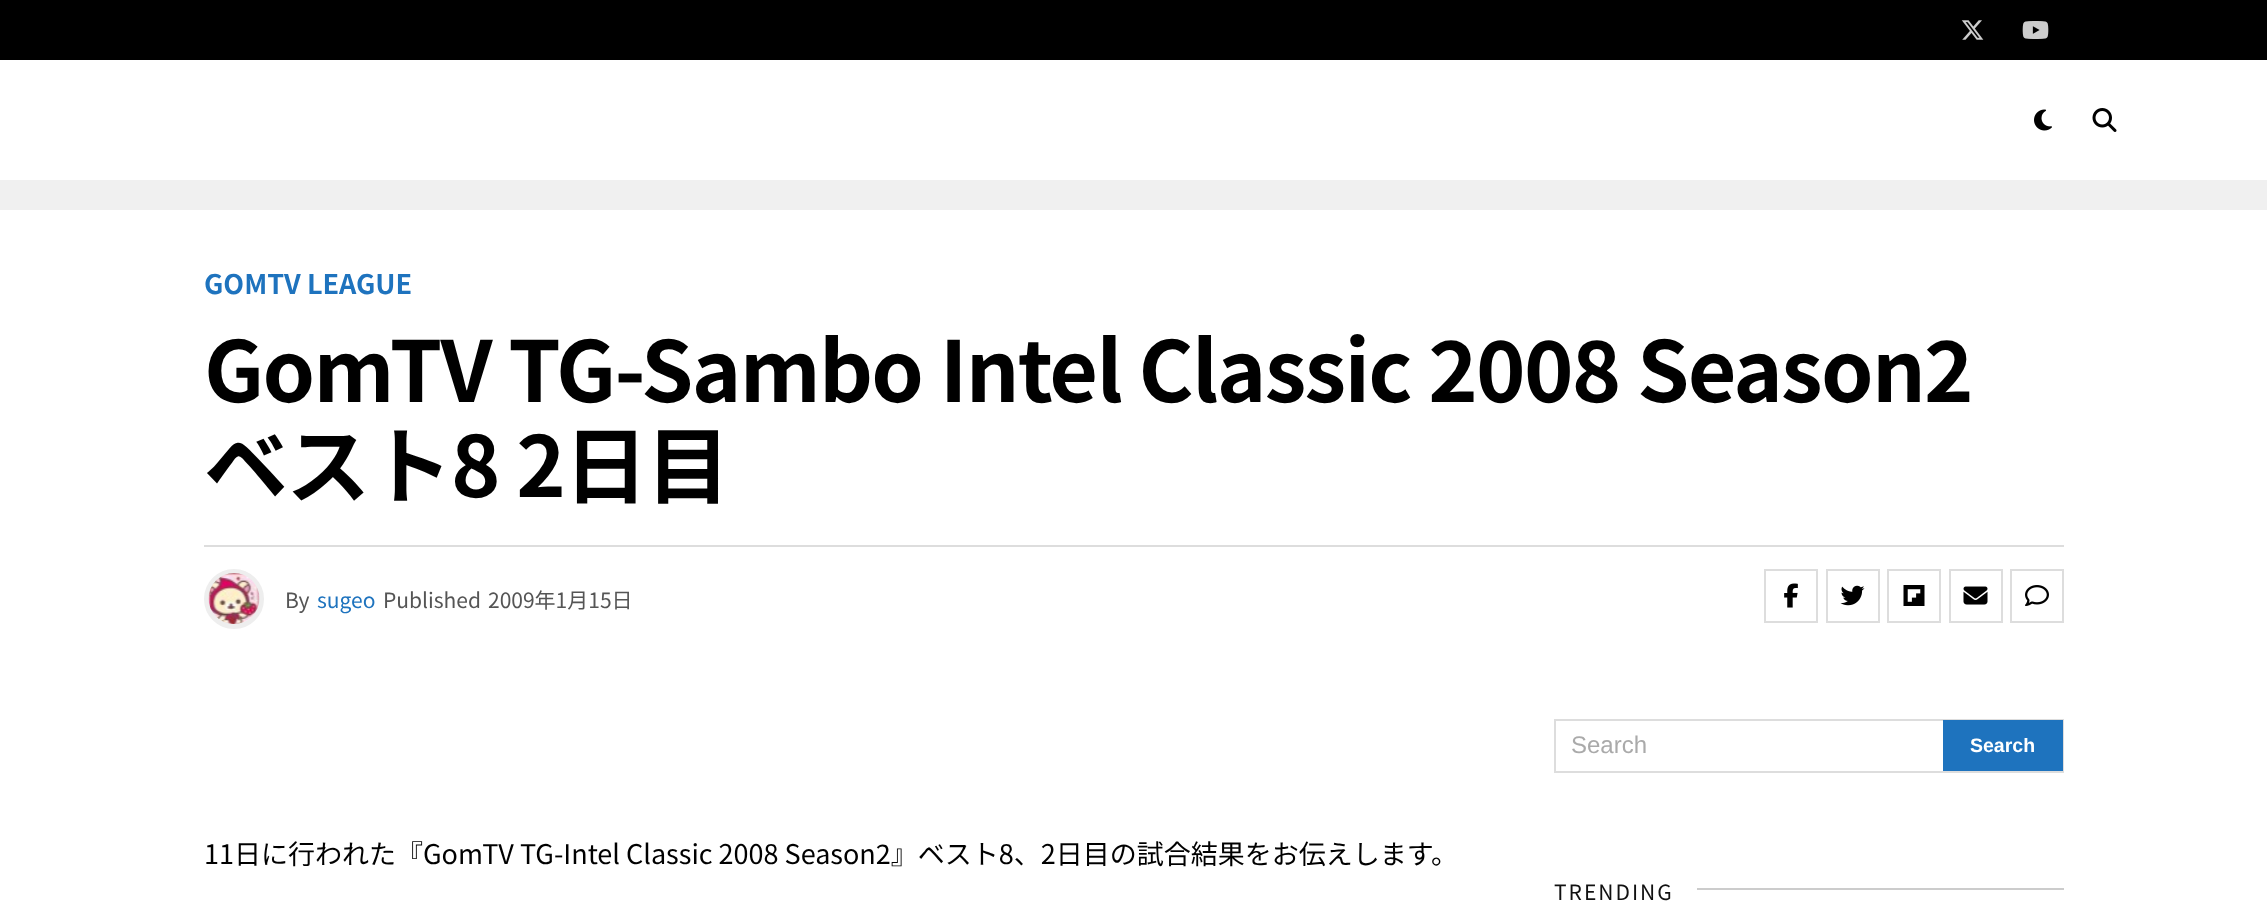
(async () => {
    const canvas = document.querySelector("canvas");
    canvas.width = 2267;
    canvas.height = 902;
    const context = canvas.getContext("2d");
    context.miterLimit = 4;
    context.fontKerning = "normal";
    function write(s, x, y, font, color) {
        context.font = font;
        context.fillStyle = color;
        context.fillText(s, x, y);
    }
    function block(x, y, w, h, color) {
        context.fillStyle = color;
        context.fillRect(x, y, w, h);
    }
    async function photo(src, x, y, w, h) {
        const img = new Image();
        img.src = src;
        await img.decode();
        context.drawImage(img, x, y, w, h);
    }

    block(0, 0, 2267, 902, "rgb(240, 240, 240)");
    block(0, 0, 2267, 60, "rgb(0, 0, 0)");
    await photo("media/1.png", 1961, 20, 23, 20);
    await photo("media/2.png", 2022, 21, 27, 18);
    block(0, 60, 2267, 120, "rgb(255, 255, 255)");
    await photo("media/3.png", 2034, 109, 18, 22);
    await photo("media/4.png", 2092, 108, 25, 24);
    block(0, 210, 2267, 692, "rgb(255, 255, 255)");
    write("GOMTV LEAGUE", 204, 294, "bold 27px Noto Sans JP", "rgb(30, 115, 190)");
    context.letterSpacing = "-1.7px";
    write("GomTV TG-Sambo Intel Classic 2008 Season2", 204, 402, "bold 84px Noto Sans JP", "rgb(0, 0, 0)");
    write("ベスト8 2日目", 204, 497, "bold 84px Noto Sans JP", "rgb(0, 0, 0)");
    block(204, 545, 1860, 2, "rgb(221, 221, 221)");
    context.beginPath();
    context.arc(234, 599, 27.5, 0, Math.PI * 2);
    context.strokeStyle = "rgb(238, 238, 238)";
    context.lineWidth = 5;
    context.stroke();
    await photo("media/5.png", 208, 573, 52, 51);
    context.letterSpacing = "0px";
    write("By", 285, 608, "21px Noto Sans JP", "rgb(85, 85, 85)");
    write("sugeo", 317, 608, "21px Noto Sans JP", "rgb(30, 115, 190)");
    write("Published", 383, 608, "21px Noto Sans JP", "rgb(85, 85, 85)");
    write("2009年1月15日", 488, 608, "21px Noto Sans JP", "rgb(85, 85, 85)");
    context.strokeStyle = "rgb(221, 221, 221)";
    context.lineWidth = 2;
    context.strokeRect(1765, 570, 52, 52);
    await photo("media/6.png", 1784, 583, 14, 25);
    context.strokeRect(1827, 570, 52, 52);
    await photo("media/7.png", 1840, 585, 25, 21);
    context.strokeRect(1888, 570, 52, 52);
    await photo("media/8.png", 1903, 585, 22, 21);
    context.strokeRect(1950, 570, 52, 52);
    await photo("media/9.png", 1963, 586, 25, 19);
    context.strokeRect(2011, 570, 52, 52);
    await photo("media/10.png", 2025, 585, 24, 21);
    write("11日に行われた『GomTV TG-Intel Classic 2008 Season2』ベスト8、2日目の試合結果をお伝えします。", 204, 864, "27px Noto Sans JP", "rgb(0, 0, 0)");
    context.strokeRect(1555, 720, 508, 52);
    write("Search", 1571, 753, "24px Liberation Sans", "rgb(170, 170, 170)");
    block(1943, 720, 120, 51, "rgb(30, 115, 190)");
    write("Search", 1970, 752, "bold 19.5px Liberation Sans", "rgb(255, 255, 255)");
    context.letterSpacing = "2px";
    write("TRENDING", 1554, 900, "21px Noto Sans JP", "rgb(17, 17, 17)");
    block(1697, 888, 367, 2, "rgb(204, 204, 204)");
})();
